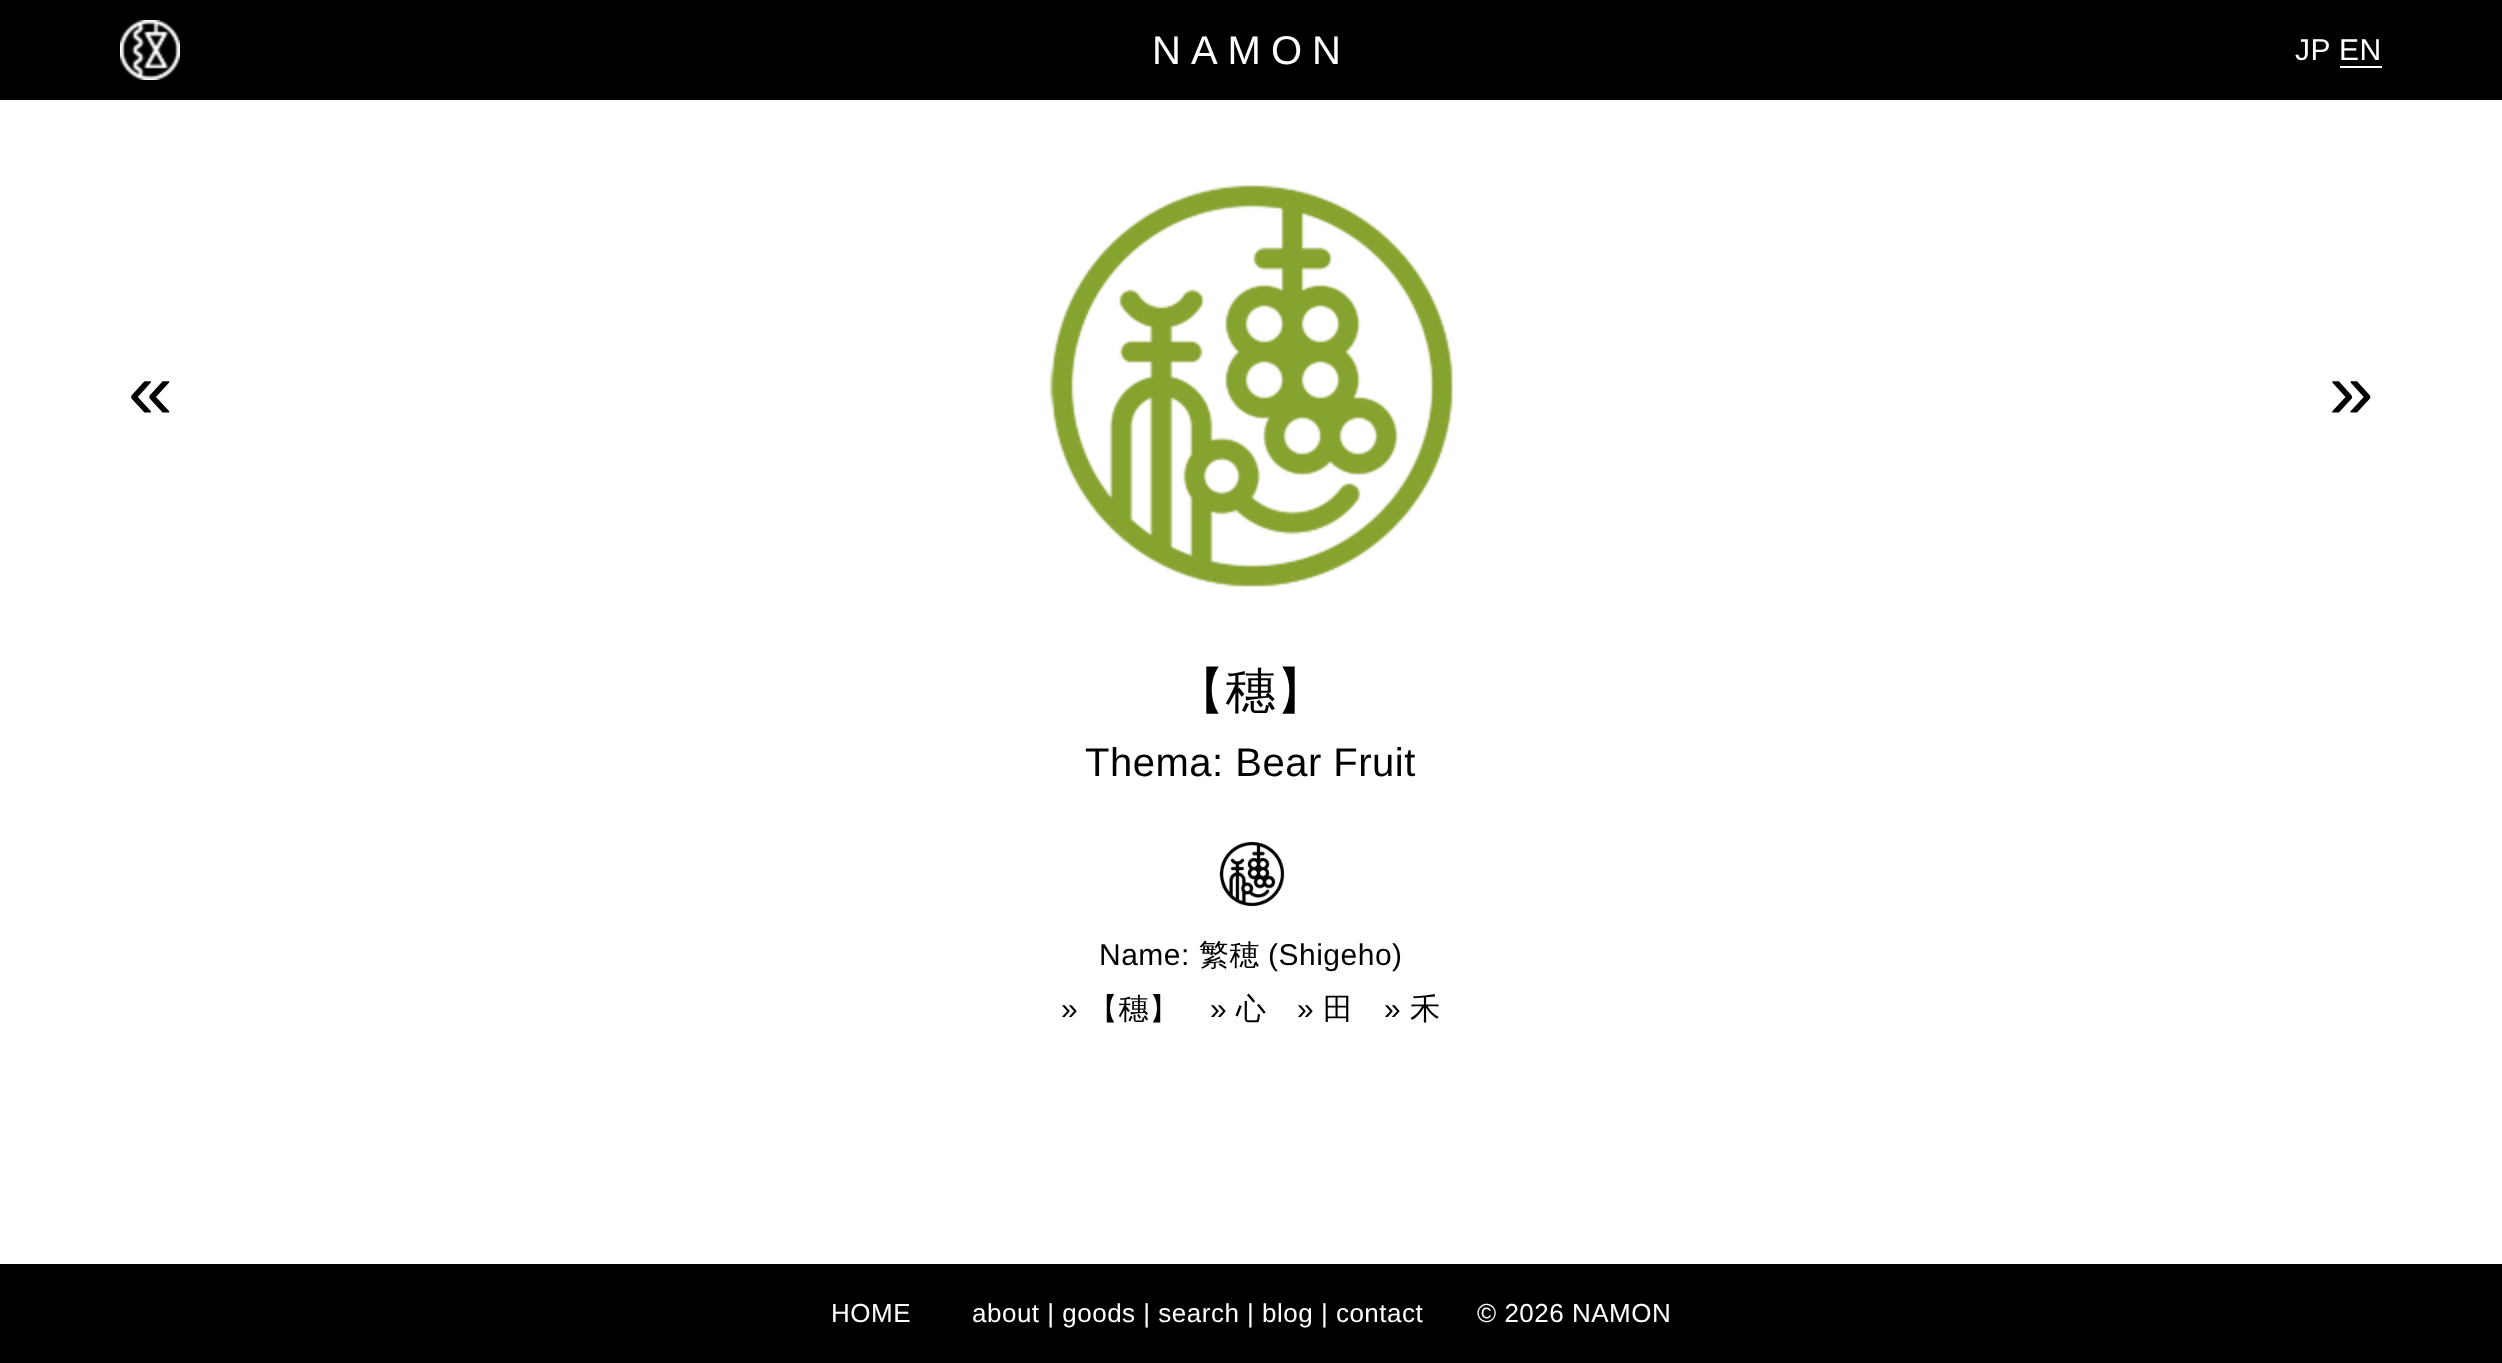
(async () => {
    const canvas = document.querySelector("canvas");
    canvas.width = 2502;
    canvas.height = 1363;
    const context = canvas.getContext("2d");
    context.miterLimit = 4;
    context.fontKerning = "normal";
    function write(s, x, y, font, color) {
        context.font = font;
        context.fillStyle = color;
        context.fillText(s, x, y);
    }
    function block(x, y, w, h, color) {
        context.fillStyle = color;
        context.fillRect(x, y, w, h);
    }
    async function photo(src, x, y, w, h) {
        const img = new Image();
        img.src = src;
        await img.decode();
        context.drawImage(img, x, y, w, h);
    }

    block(0, 0, 2502, 1363, "rgb(255, 255, 255)");
    block(0, 0, 2502, 100, "rgb(0, 0, 0)");
    await photo("media/1.png", 120, 20, 60, 60);
    context.letterSpacing = "10px";
    write("NAMON", 1152, 64, "40px Liberation Sans", "rgb(255, 255, 255)");
    context.letterSpacing = "0.5px";
    write("JP", 2295, 60, "30px Liberation Sans", "rgb(255, 255, 255)");
    write("EN", 2339, 60, "30px Liberation Sans", "rgb(255, 255, 255)");
    block(2340, 66, 42, 2, "rgb(255, 255, 255)");
    write("«", 128, 418, "80px Liberation Sans", "rgb(0, 0, 0)");
    write("»", 2329, 418, "80px Liberation Sans", "rgb(0, 0, 0)");
    await photo("media/2.png", 1049, 185, 404, 402);
    write("【穗】", 1175, 708, "500 50px WenQuanYi Zen Hei", "rgb(0, 0, 0)");
    write("Thema: Bear Fruit", 1085, 776, "40px Liberation Sans", "rgb(0, 0, 0)");
    await photo("media/3.png", 1219, 841, 66, 66);
    write("Name:", 1099, 965, "30px Liberation Sans", "rgb(0, 0, 0)");
    write("繁穂", 1199, 965, "500 30px WenQuanYi Zen Hei", "rgb(0, 0, 0)");
    write("(Shigeho)", 1268, 965, "30px Liberation Sans", "rgb(0, 0, 0)");
    write("»", 1061, 1019, "30px Liberation Sans", "rgb(0, 0, 0)");
    write("【穗】", 1088, 1019, "500 30px WenQuanYi Zen Hei", "rgb(0, 0, 0)");
    write("»", 1210, 1019, "30px Liberation Sans", "rgb(0, 0, 0)");
    write("心", 1236, 1019, "500 30px WenQuanYi Zen Hei", "rgb(0, 0, 0)");
    write("»", 1297, 1019, "30px Liberation Sans", "rgb(0, 0, 0)");
    write("田", 1323, 1019, "500 30px WenQuanYi Zen Hei", "rgb(0, 0, 0)");
    write("»", 1384, 1019, "30px Liberation Sans", "rgb(0, 0, 0)");
    write("禾", 1410, 1019, "500 30px WenQuanYi Zen Hei", "rgb(0, 0, 0)");
    block(0, 1264, 2502, 99, "rgb(0, 0, 0)");
    write("HOME", 831, 1322, "26px Liberation Sans", "rgb(255, 255, 255)");
    write("about | goods | search | blog | contact", 972, 1322, "26px Liberation Sans", "rgb(255, 255, 255)");
    write("© 2026 NAMON", 1477, 1322, "26px Liberation Sans", "rgb(255, 255, 255)");
})();
